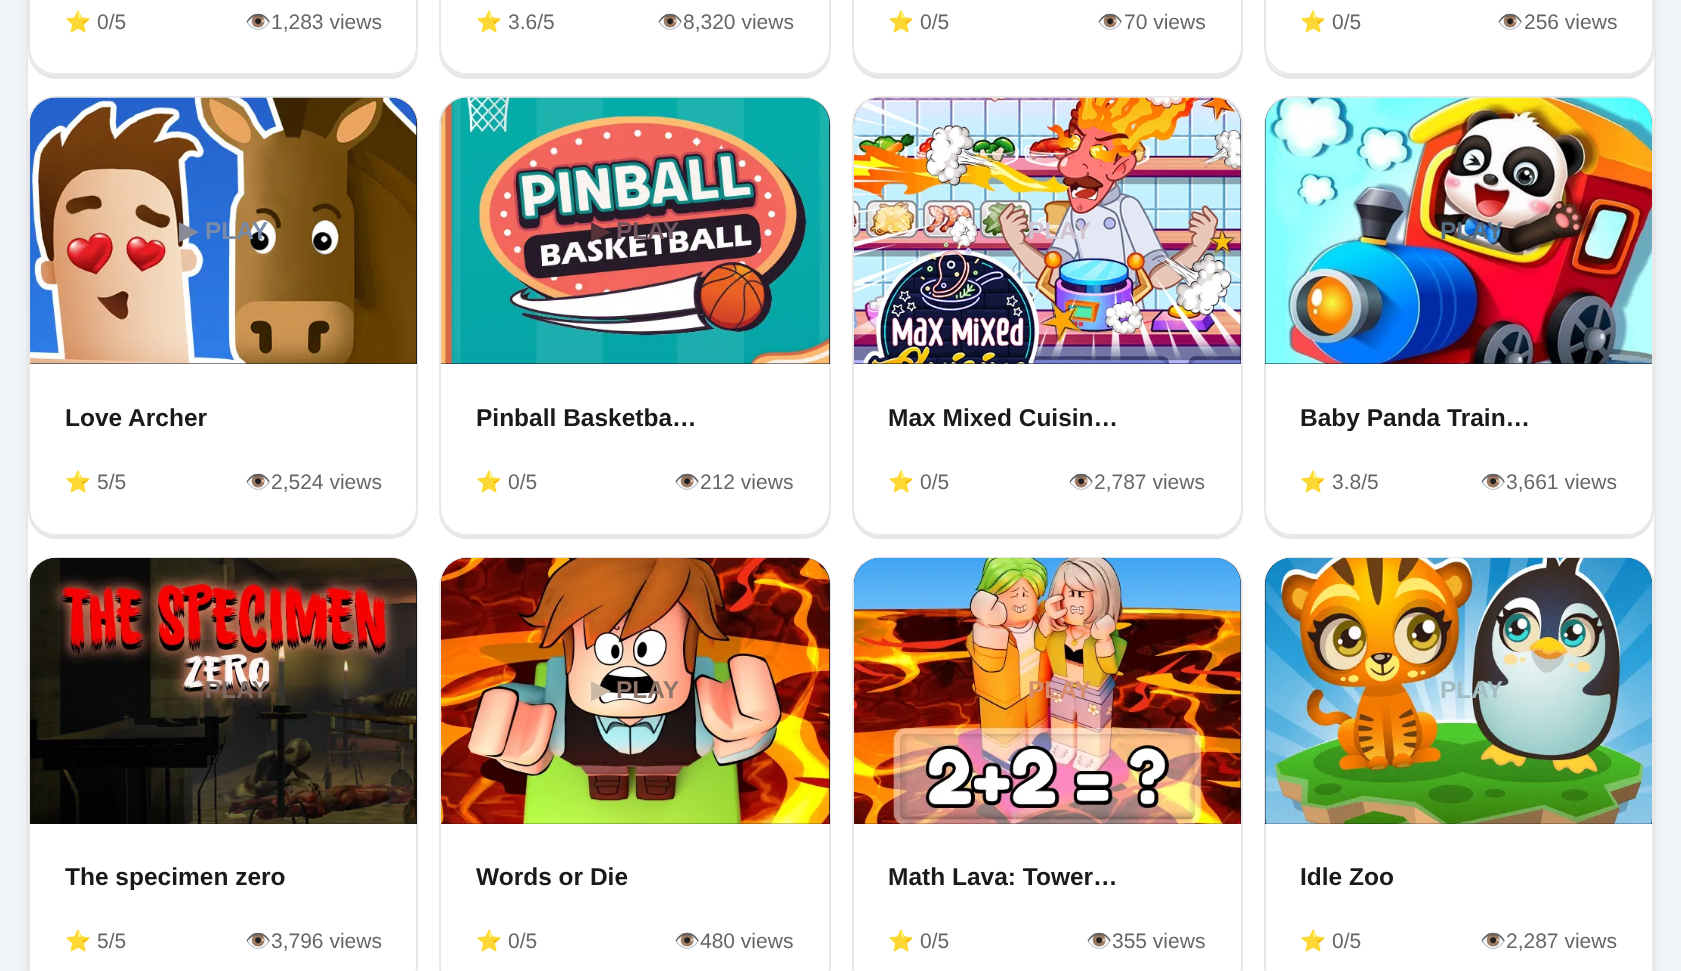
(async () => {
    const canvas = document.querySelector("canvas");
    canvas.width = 1681;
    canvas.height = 971;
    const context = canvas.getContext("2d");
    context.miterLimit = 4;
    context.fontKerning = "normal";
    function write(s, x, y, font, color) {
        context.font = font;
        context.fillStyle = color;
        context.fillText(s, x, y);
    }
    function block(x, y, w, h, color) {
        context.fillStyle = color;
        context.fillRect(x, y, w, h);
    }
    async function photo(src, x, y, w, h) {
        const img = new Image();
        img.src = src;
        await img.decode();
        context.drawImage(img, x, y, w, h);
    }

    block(0, 0, 1681, 971, "rgb(242, 245, 249)");
    context.fillStyle = "rgba(0, 0, 0, 0.05)";
    context.filter = "blur(7px)";
    context.beginPath();
    context.roundRect(26, -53, 1630, 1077, 32);
    context.fill();
    context.filter = "none";
    context.fillStyle = "rgb(255, 255, 255)";
    context.beginPath();
    context.rect(27, -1, 1628, 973);
    context.fill();
    context.strokeStyle = "rgb(232, 232, 232)";
    context.lineWidth = 2;
    context.stroke();
    context.fillStyle = "rgb(230, 230, 230)";
    context.beginPath();
    context.moveTo(28, 47);
    context.lineTo(28, 51);
    context.bezierCurveTo(28, 66, 41, 79, 56, 79);
    context.lineTo(390, 79);
    context.bezierCurveTo(405, 79, 418, 66, 418, 51);
    context.bezierCurveTo(416, 65, 404, 75, 390, 75);
    context.lineTo(56, 75);
    context.bezierCurveTo(41, 75, 28, 63, 28, 47);
    context.closePath();
    context.fill();
    context.fillStyle = "rgb(255, 255, 255)";
    context.beginPath();
    context.roundRect(29, -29, 388, 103, 27);
    context.fill();
    context.stroke();
    write("⭐", 65, 29, "21px Noto Color Emoji", "rgb(102, 102, 102)");
    write("0/5", 97, 29, "21px Liberation Sans", "rgb(102, 102, 102)");
    write("👁️", 245, 29, "21px Noto Color Emoji", "rgb(102, 102, 102)");
    write("1,283 views", 271, 29, "21px Liberation Sans", "rgb(102, 102, 102)");
    context.fillStyle = "rgb(230, 230, 230)";
    context.beginPath();
    context.moveTo(439, -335);
    context.lineTo(439, 51);
    context.bezierCurveTo(439, 66, 452, 79, 467, 79);
    context.lineTo(803, 79);
    context.bezierCurveTo(818, 79, 831, 66, 831, 51);
    context.bezierCurveTo(829, 65, 817, 75, 803, 75);
    context.lineTo(467, 75);
    context.bezierCurveTo(452, 75, 439, 63, 439, 47);
    context.closePath();
    context.fill();
    context.fillStyle = "rgb(255, 255, 255)";
    context.beginPath();
    context.roundRect(440, -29, 390, 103, 27);
    context.fill();
    context.stroke();
    write("⭐", 476, 29, "21px Noto Color Emoji", "rgb(102, 102, 102)");
    write("3.6/5", 508, 29, "21px Liberation Sans", "rgb(102, 102, 102)");
    write("👁️", 657, 29, "21px Noto Color Emoji", "rgb(102, 102, 102)");
    write("8,320 views", 683, 29, "21px Liberation Sans", "rgb(102, 102, 102)");
    context.fillStyle = "rgb(230, 230, 230)";
    context.beginPath();
    context.moveTo(852, -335);
    context.lineTo(852, 51);
    context.bezierCurveTo(852, 66, 865, 79, 880, 79);
    context.lineTo(1215, 79);
    context.bezierCurveTo(1230, 79, 1243, 66, 1243, 51);
    context.lineTo(1243, -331);
    context.lineTo(1242, -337);
    context.lineTo(1242, 47);
    context.bezierCurveTo(1242, 63, 1230, 75, 1214, 75);
    context.lineTo(880, 75);
    context.bezierCurveTo(865, 75, 852, 63, 852, 47);
    context.closePath();
    context.fill();
    context.fillStyle = "rgb(255, 255, 255)";
    context.beginPath();
    context.roundRect(853, -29, 389, 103, 27);
    context.fill();
    context.stroke();
    write("⭐", 888, 29, "21px Noto Color Emoji", "rgb(102, 102, 102)");
    write("0/5", 920, 29, "21px Liberation Sans", "rgb(102, 102, 102)");
    write("👁️", 1097, 29, "21px Noto Color Emoji", "rgb(102, 102, 102)");
    write("70 views", 1124, 29, "21px Liberation Sans", "rgb(102, 102, 102)");
    context.fillStyle = "rgb(230, 230, 230)";
    context.beginPath();
    context.moveTo(1264, 53);
    context.bezierCurveTo(1265, 67, 1277, 79, 1292, 79);
    context.lineTo(1626, 79);
    context.bezierCurveTo(1641, 79, 1654, 66, 1654, 51);
    context.lineTo(1654, -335);
    context.lineTo(1654, 47);
    context.bezierCurveTo(1654, 63, 1641, 75, 1626, 75);
    context.lineTo(1292, 75);
    context.bezierCurveTo(1278, 75, 1267, 66, 1264, 53);
    context.closePath();
    context.fill();
    context.fillStyle = "rgb(255, 255, 255)";
    context.beginPath();
    context.roundRect(1265, -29, 388, 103, 27);
    context.fill();
    context.stroke();
    write("⭐", 1300, 29, "21px Noto Color Emoji", "rgb(102, 102, 102)");
    write("0/5", 1332, 29, "21px Liberation Sans", "rgb(102, 102, 102)");
    write("👁️", 1497, 29, "21px Noto Color Emoji", "rgb(102, 102, 102)");
    write("256 views", 1524, 29, "21px Liberation Sans", "rgb(102, 102, 102)");
    context.fillStyle = "rgb(230, 230, 230)";
    context.beginPath();
    context.moveTo(28, 508);
    context.lineTo(28, 511);
    context.bezierCurveTo(28, 526, 41, 539, 56, 539);
    context.lineTo(390, 539);
    context.bezierCurveTo(405, 539, 418, 527, 418, 511);
    context.bezierCurveTo(416, 525, 404, 536, 390, 536);
    context.lineTo(56, 536);
    context.bezierCurveTo(41, 536, 28, 523, 28, 508);
    context.closePath();
    context.fill();
    context.fillStyle = "rgb(255, 255, 255)";
    context.beginPath();
    context.roundRect(29, 97, 388, 438, 27);
    context.fill();
    context.stroke();
    context.fillStyle = "rgb(11, 16, 34)";
    context.beginPath();
    context.roundRect(30, 98, 387, 266, [26, 26, 0, 0]);
    context.fill();
    await photo("media/1.png", 29, 97, 388, 267);
    write("▶", 179, 239, "bold 24.5px DejaVu Sans", "rgb(136, 138, 152)");
    write("PLAY", 205, 239, "bold 24.5px Liberation Sans", "rgb(121, 139, 168)");
    write("Love Archer", 65, 426, "bold 24.5px Liberation Sans", "rgb(26, 26, 26)");
    write("⭐", 65, 489, "21px Noto Color Emoji", "rgb(102, 102, 102)");
    write("5/5", 97, 489, "21px Liberation Sans", "rgb(102, 102, 102)");
    write("👁️", 245, 489, "21px Noto Color Emoji", "rgb(102, 102, 102)");
    write("2,524 views", 271, 489, "21px Liberation Sans", "rgb(102, 102, 102)");
    context.fillStyle = "rgb(230, 230, 230)";
    context.beginPath();
    context.moveTo(439, 124);
    context.lineTo(439, 511);
    context.bezierCurveTo(439, 526, 452, 539, 467, 539);
    context.lineTo(803, 539);
    context.bezierCurveTo(818, 539, 831, 527, 831, 511);
    context.bezierCurveTo(829, 525, 817, 536, 803, 536);
    context.lineTo(467, 536);
    context.bezierCurveTo(452, 536, 439, 523, 439, 508);
    context.closePath();
    context.fill();
    context.fillStyle = "rgb(255, 255, 255)";
    context.beginPath();
    context.roundRect(440, 97, 390, 438, 27);
    context.fill();
    context.stroke();
    context.fillStyle = "rgb(11, 16, 34)";
    context.beginPath();
    context.roundRect(441, 98, 389, 266, [26, 26, 0, 0]);
    context.fill();
    await photo("media/2.png", 441, 97, 389, 267);
    write("▶", 591, 239, "bold 24.5px DejaVu Sans", "rgb(87, 50, 57)");
    write("PLAY", 616, 239, "bold 24.5px Liberation Sans", "rgb(113, 86, 94)");
    write("Pinball Basketba…", 476, 426, "bold 24.5px Liberation Sans", "rgb(26, 26, 26)");
    write("⭐", 476, 489, "21px Noto Color Emoji", "rgb(102, 102, 102)");
    write("0/5", 508, 489, "21px Liberation Sans", "rgb(102, 102, 102)");
    write("👁️", 674, 489, "21px Noto Color Emoji", "rgb(102, 102, 102)");
    write("212 views", 700, 489, "21px Liberation Sans", "rgb(102, 102, 102)");
    context.fillStyle = "rgb(230, 230, 230)";
    context.beginPath();
    context.moveTo(852, 124);
    context.lineTo(852, 511);
    context.bezierCurveTo(852, 526, 865, 539, 880, 539);
    context.lineTo(1215, 539);
    context.bezierCurveTo(1230, 539, 1243, 526, 1243, 511);
    context.lineTo(1243, 128);
    context.lineTo(1242, 122);
    context.lineTo(1242, 508);
    context.bezierCurveTo(1242, 523, 1230, 536, 1214, 536);
    context.lineTo(880, 536);
    context.bezierCurveTo(865, 536, 852, 523, 852, 508);
    context.closePath();
    context.fill();
    context.fillStyle = "rgb(255, 255, 255)";
    context.beginPath();
    context.roundRect(853, 97, 389, 438, 27);
    context.fill();
    context.stroke();
    context.fillStyle = "rgb(11, 16, 34)";
    context.beginPath();
    context.roundRect(854, 98, 387, 266, [26, 26, 0, 0]);
    context.fill();
    await photo("media/3.png", 854, 97, 387, 267);
    write("PLAY", 1028, 239, "bold 24.5px Liberation Sans", "rgb(209, 196, 209)");
    write("Max Mixed Cuisin…", 888, 426, "bold 24.5px Liberation Sans", "rgb(26, 26, 26)");
    write("⭐", 888, 489, "21px Noto Color Emoji", "rgb(102, 102, 102)");
    write("0/5", 920, 489, "21px Liberation Sans", "rgb(102, 102, 102)");
    write("👁️", 1068, 489, "21px Noto Color Emoji", "rgb(102, 102, 102)");
    write("2,787 views", 1094, 489, "21px Liberation Sans", "rgb(102, 102, 102)");
    context.fillStyle = "rgb(230, 230, 230)";
    context.beginPath();
    context.moveTo(1264, 513);
    context.bezierCurveTo(1265, 528, 1277, 539, 1292, 539);
    context.lineTo(1626, 539);
    context.bezierCurveTo(1641, 539, 1654, 526, 1654, 511);
    context.lineTo(1654, 124);
    context.lineTo(1654, 508);
    context.bezierCurveTo(1654, 523, 1641, 536, 1626, 536);
    context.lineTo(1292, 536);
    context.bezierCurveTo(1278, 536, 1267, 526, 1264, 513);
    context.closePath();
    context.fill();
    context.fillStyle = "rgb(255, 255, 255)";
    context.beginPath();
    context.roundRect(1265, 97, 388, 438, 27);
    context.fill();
    context.stroke();
    context.fillStyle = "rgb(11, 16, 34)";
    context.beginPath();
    context.roundRect(1265, 98, 387, 266, [26, 26, 0, 0]);
    context.fill();
    await photo("media/4.png", 1265, 97, 387, 267);
    write("PLAY", 1440, 239, "bold 24.5px Liberation Sans", "rgb(87, 110, 130)");
    write("Baby Panda Train…", 1300, 426, "bold 24.5px Liberation Sans", "rgb(26, 26, 26)");
    write("⭐", 1300, 489, "21px Noto Color Emoji", "rgb(102, 102, 102)");
    write("3.8/5", 1332, 489, "21px Liberation Sans", "rgb(102, 102, 102)");
    write("👁️", 1480, 489, "21px Noto Color Emoji", "rgb(102, 102, 102)");
    write("3,661 views", 1506, 489, "21px Liberation Sans", "rgb(102, 102, 102)");
    context.beginPath();
    context.roundRect(29, 558, 388, 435, 27);
    context.stroke();
    context.fillStyle = "rgb(11, 16, 34)";
    context.beginPath();
    context.roundRect(30, 558, 387, 266, [26, 26, 0, 0]);
    context.fill();
    await photo("media/5.png", 29, 557, 388, 267);
    write("PLAY", 205, 698, "bold 24.5px Liberation Sans", "rgb(128, 107, 98)");
    write("The specimen zero", 65, 885, "bold 24.5px Liberation Sans", "rgb(26, 26, 26)");
    write("⭐", 65, 948, "21px Noto Color Emoji", "rgb(102, 102, 102)");
    write("5/5", 97, 948, "21px Liberation Sans", "rgb(102, 102, 102)");
    write("👁️", 245, 948, "21px Noto Color Emoji", "rgb(102, 102, 102)");
    write("3,796 views", 271, 948, "21px Liberation Sans", "rgb(102, 102, 102)");
    context.beginPath();
    context.roundRect(440, 558, 390, 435, 27);
    context.stroke();
    context.fillStyle = "rgb(11, 16, 34)";
    context.beginPath();
    context.roundRect(441, 558, 389, 266, [26, 26, 0, 0]);
    context.fill();
    await photo("media/6.png", 441, 557, 389, 267);
    write("▶", 591, 698, "bold 24.5px DejaVu Sans", "rgb(204, 185, 164)");
    write("PLAY", 616, 698, "bold 24.5px Liberation Sans", "rgb(142, 116, 105)");
    write("Words or Die", 476, 885, "bold 24.5px Liberation Sans", "rgb(26, 26, 26)");
    write("⭐", 476, 948, "21px Noto Color Emoji", "rgb(102, 102, 102)");
    write("0/5", 508, 948, "21px Liberation Sans", "rgb(102, 102, 102)");
    write("👁️", 674, 948, "21px Noto Color Emoji", "rgb(102, 102, 102)");
    write("480 views", 700, 948, "21px Liberation Sans", "rgb(102, 102, 102)");
    context.beginPath();
    context.roundRect(853, 558, 389, 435, 27);
    context.stroke();
    context.fillStyle = "rgb(11, 16, 34)";
    context.beginPath();
    context.roundRect(854, 558, 387, 266, [26, 26, 0, 0]);
    context.fill();
    await photo("media/7.png", 854, 557, 387, 267);
    write("PLAY", 1028, 698, "bold 24.5px Liberation Sans", "rgb(216, 141, 109)");
    write("Math Lava: Tower…", 888, 885, "bold 24.5px Liberation Sans", "rgb(26, 26, 26)");
    write("⭐", 888, 948, "21px Noto Color Emoji", "rgb(102, 102, 102)");
    write("0/5", 920, 948, "21px Liberation Sans", "rgb(102, 102, 102)");
    write("👁️", 1086, 948, "21px Noto Color Emoji", "rgb(102, 102, 102)");
    write("355 views", 1112, 948, "21px Liberation Sans", "rgb(102, 102, 102)");
    context.beginPath();
    context.roundRect(1265, 558, 388, 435, 27);
    context.stroke();
    context.fillStyle = "rgb(11, 16, 34)";
    context.beginPath();
    context.roundRect(1265, 558, 387, 266, [26, 26, 0, 0]);
    context.fill();
    await photo("media/8.png", 1265, 557, 387, 267);
    write("PLAY", 1440, 698, "bold 24.5px Liberation Sans", "rgb(163, 188, 195)");
    write("Idle Zoo", 1300, 885, "bold 24.5px Liberation Sans", "rgb(26, 26, 26)");
    write("⭐", 1300, 948, "21px Noto Color Emoji", "rgb(102, 102, 102)");
    write("0/5", 1332, 948, "21px Liberation Sans", "rgb(102, 102, 102)");
    write("👁️", 1480, 948, "21px Noto Color Emoji", "rgb(102, 102, 102)");
    write("2,287 views", 1506, 948, "21px Liberation Sans", "rgb(102, 102, 102)");
})();
